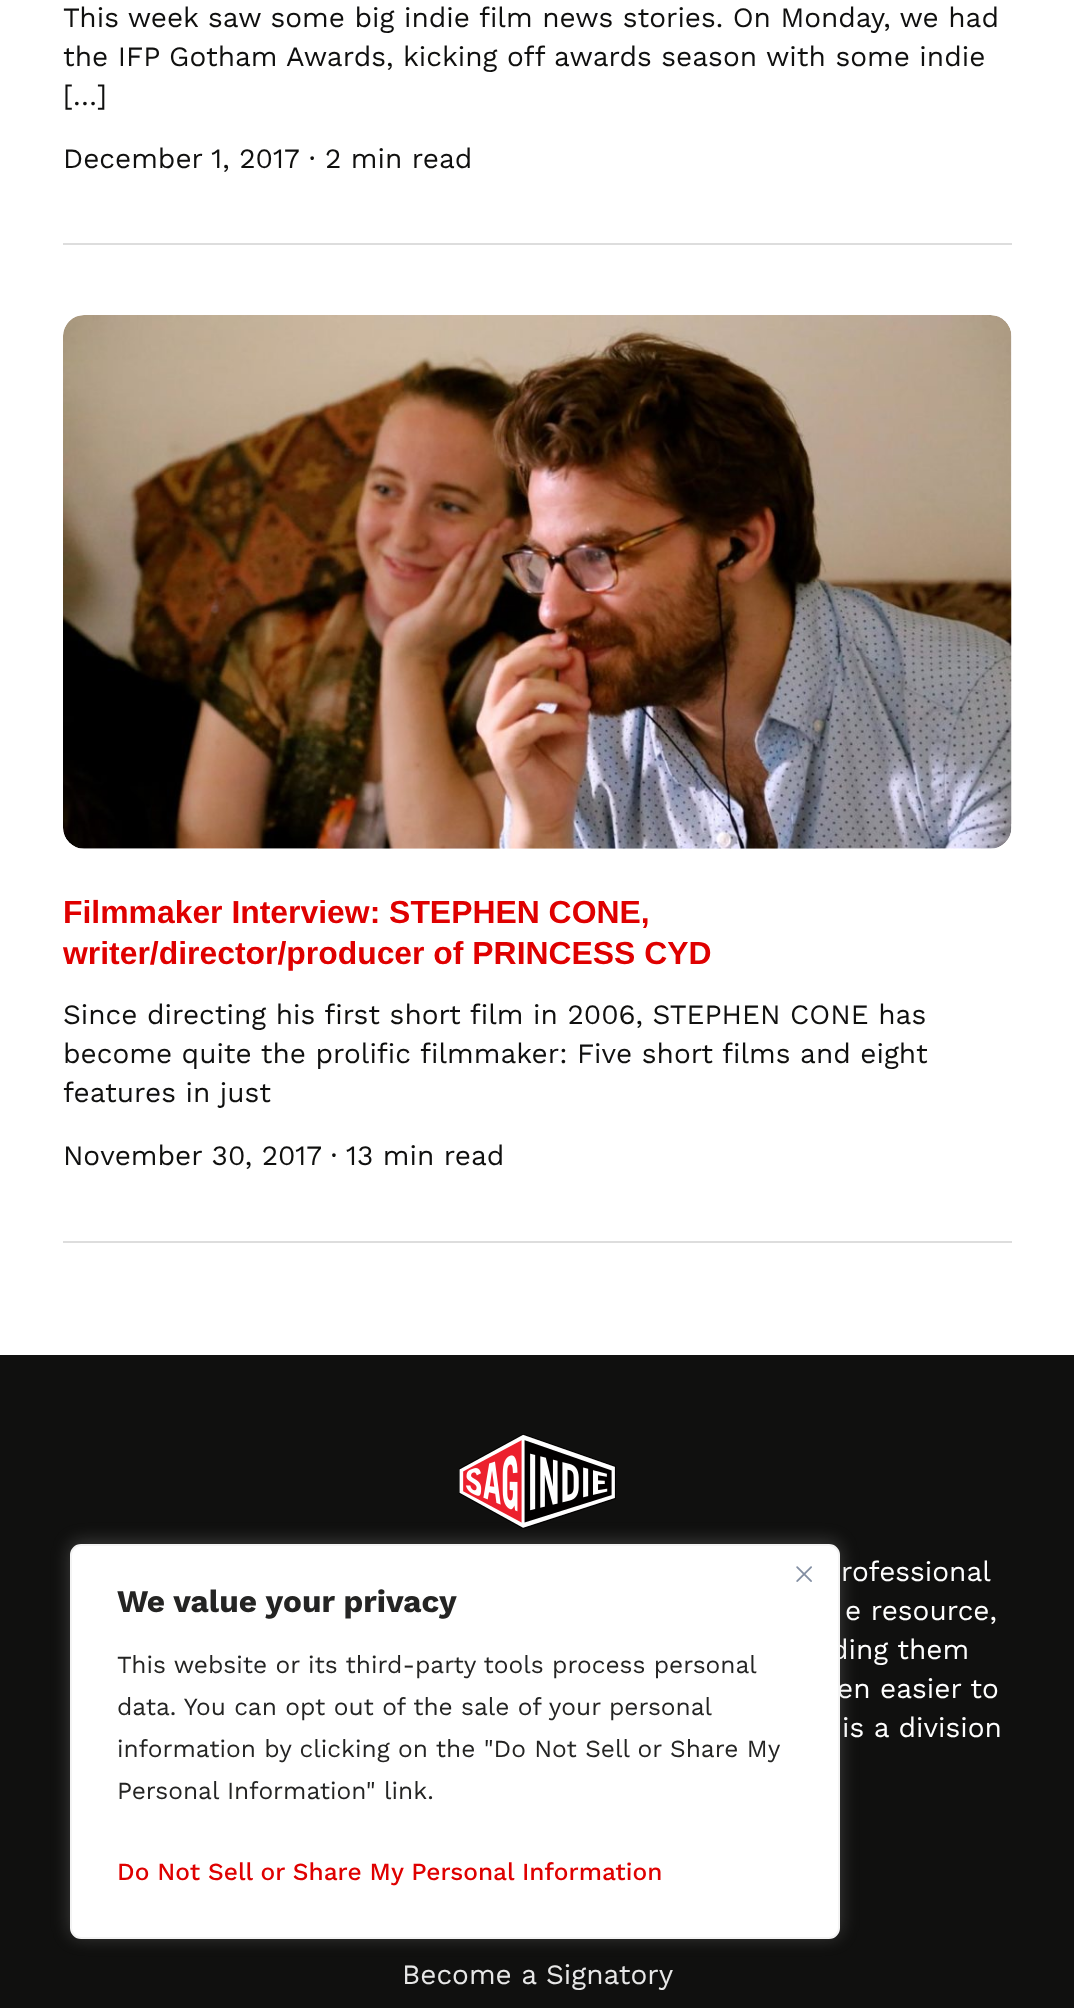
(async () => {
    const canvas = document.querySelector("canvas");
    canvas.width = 1074;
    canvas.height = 2008;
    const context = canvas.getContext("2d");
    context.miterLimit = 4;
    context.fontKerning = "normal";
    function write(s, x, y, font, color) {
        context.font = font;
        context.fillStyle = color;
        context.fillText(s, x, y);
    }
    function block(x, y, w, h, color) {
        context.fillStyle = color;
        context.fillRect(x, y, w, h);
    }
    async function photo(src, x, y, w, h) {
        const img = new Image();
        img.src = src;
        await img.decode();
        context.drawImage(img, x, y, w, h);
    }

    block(0, 0, 1074, 2008, "rgb(255, 255, 255)");
    block(63, 243, 949, 2, "rgb(221, 221, 221)");
    write("This week saw some big indie film news stories. On Monday, we had", 63, 27, "28px Work Sans", "rgb(16, 16, 15)");
    write("the IFP Gotham Awards, kicking off awards season with some indie", 63, 66, "28px Work Sans", "rgb(16, 16, 15)");
    write("[…]", 63, 105, "28px Work Sans", "rgb(16, 16, 15)");
    write("December 1, 2017", 63, 168, "28px Work Sans", "rgb(16, 16, 15)");
    write("· 2 min read", 309, 168, "28px Work Sans", "rgb(16, 16, 15)");
    block(63, 1241, 949, 2, "rgb(221, 221, 221)");
    await photo("media/1.png", 63, 315, 949, 534);
    write("Filmmaker Interview: STEPHEN CONE,", 63, 923, "bold 31.9px Liberation Sans", "rgb(223, 0, 0)");
    write("writer/director/producer of PRINCESS CYD", 63, 964, "bold 31.9px Liberation Sans", "rgb(223, 0, 0)");
    write("Since directing his first short film in 2006, STEPHEN CONE has", 63, 1024, "28px Work Sans", "rgb(16, 16, 15)");
    write("become quite the prolific filmmaker: Five short films and eight", 63, 1063, "28px Work Sans", "rgb(16, 16, 15)");
    write("features in just", 63, 1102, "28px Work Sans", "rgb(16, 16, 15)");
    write("November 30, 2017 ·", 63, 1165, "28px Work Sans", "rgb(16, 16, 15)");
    write("13 min read", 346, 1165, "28px Work Sans", "rgb(16, 16, 15)");
    block(0, 1355, 1074, 653, "rgb(16, 16, 15)");
    await photo("media/2.png", 459, 1434, 157, 95);
    write("rofessional", 841, 1581, "28px Work Sans", "rgb(255, 255, 255)");
    write("e resource,", 845, 1620, "28px Work Sans", "rgb(255, 255, 255)");
    write("ding them", 831, 1659, "28px Work Sans", "rgb(255, 255, 255)");
    write("en easier to", 837, 1698, "28px Work Sans", "rgb(255, 255, 255)");
    write("is a division", 842, 1737, "28px Work Sans", "rgb(255, 255, 255)");
    write("Become a Signatory", 402, 1984, "28px Work Sans", "rgb(231, 231, 231)");
    context.fillStyle = "rgba(172, 171, 171, 0.3)";
    context.filter = "blur(9px)";
    context.beginPath();
    context.roundRect(70, 1542, 770, 395, 11);
    context.fill();
    context.filter = "none";
    context.fillStyle = "rgb(255, 255, 255)";
    context.beginPath();
    context.roundRect(71, 1545, 768, 393, 10);
    context.fill();
    context.strokeStyle = "rgb(244, 244, 244)";
    context.lineWidth = 2;
    context.stroke();
    await photo("media/3.png", 796, 1566, 16, 16);
    write("We value your privacy", 117, 1612, "bold 31.5px Work Sans", "rgb(36, 36, 35)");
    write("This website or its third-party tools process personal", 117, 1673, "24.5px Work Sans", "rgb(36, 36, 35)");
    write("data. You can opt out of the sale of your personal", 117, 1715, "24.5px Work Sans", "rgb(36, 36, 35)");
    write("information by clicking on the \"Do Not Sell or Share My", 117, 1757, "24.5px Work Sans", "rgb(36, 36, 35)");
    write("Personal Information\" link.", 117, 1799, "24.5px Work Sans", "rgb(36, 36, 35)");
    write("Do Not Sell or Share My Personal Information", 117, 1880, "500 24.5px Work Sans", "rgb(223, 0, 0)");
})();
